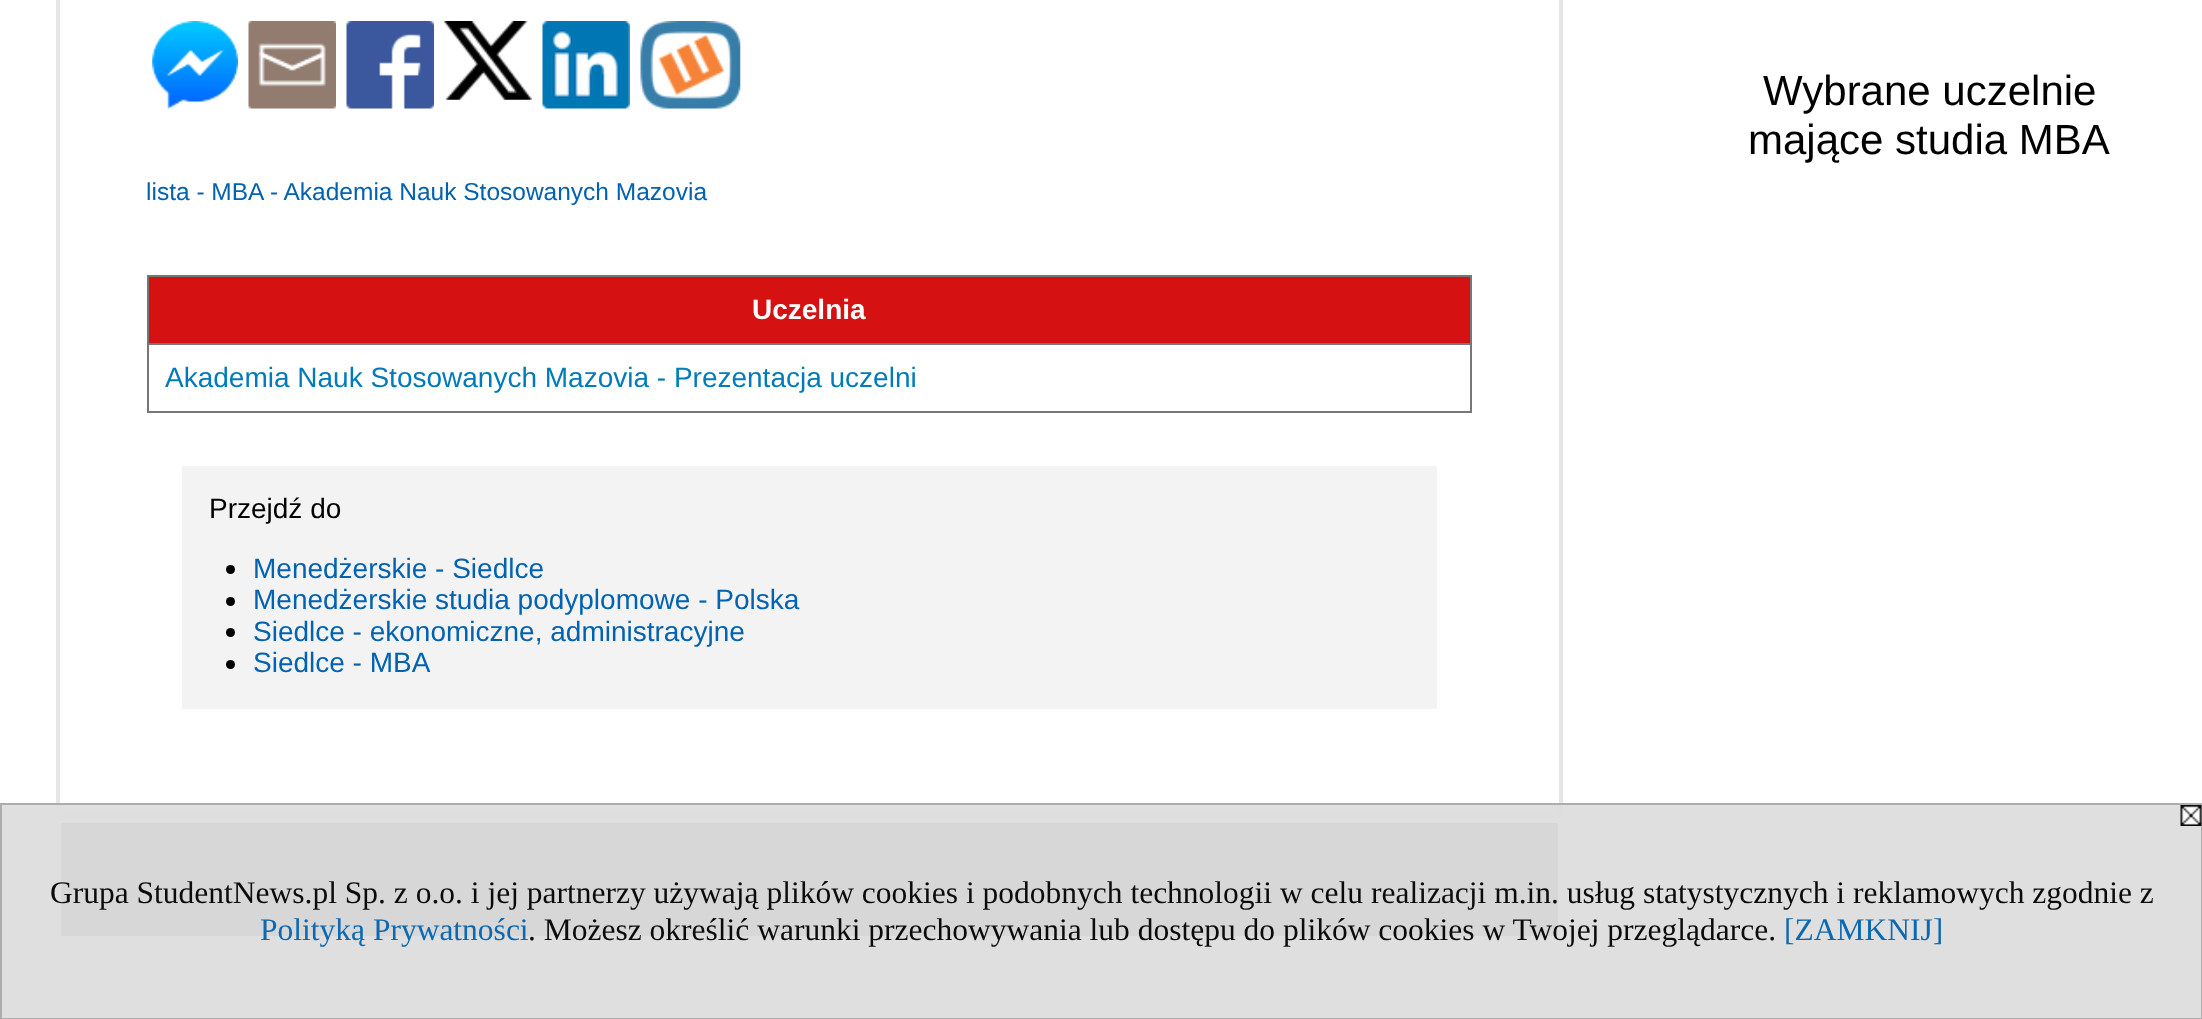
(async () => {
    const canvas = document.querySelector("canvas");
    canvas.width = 2202;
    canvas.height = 1019;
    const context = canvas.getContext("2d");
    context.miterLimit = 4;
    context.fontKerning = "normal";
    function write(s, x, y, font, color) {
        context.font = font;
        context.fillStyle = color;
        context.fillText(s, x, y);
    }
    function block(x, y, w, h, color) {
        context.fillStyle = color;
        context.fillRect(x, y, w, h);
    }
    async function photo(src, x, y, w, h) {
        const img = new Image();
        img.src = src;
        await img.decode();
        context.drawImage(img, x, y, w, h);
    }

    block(0, 0, 2202, 1019, "rgb(255, 255, 255)");
    write("Wybrane uczelnie", 1763, 105, "42px Liberation Sans", "rgb(0, 0, 0)");
    write("mające studia MBA", 1748, 154, "42px Liberation Sans", "rgb(0, 0, 0)");
    context.strokeStyle = "rgb(230, 230, 230)";
    context.lineWidth = 4;
    context.strokeRect(58, -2, 1503, 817);
    await photo("media/1.png", 152, 21, 86, 88);
    await photo("media/2.png", 248, 21, 88, 88);
    await photo("media/3.png", 346, 21, 88, 88);
    await photo("media/4.png", 444, 21, 88, 79);
    await photo("media/5.png", 542, 21, 88, 88);
    await photo("media/6.png", 640, 21, 101, 88);
    write("lista - MBA - Akademia Nauk Stosowanych Mazovia", 146, 200, "24.5px Liberation Sans", "rgb(0, 98, 176)");
    block(149, 277, 1321, 66, "rgb(213, 17, 17)");
    block(147, 275, 1325, 2, "rgb(119, 119, 119)");
    block(147, 343, 1325, 2, "rgb(119, 119, 119)");
    block(1470, 343, 2, 70, "rgb(119, 119, 119)");
    block(1470, 275, 2, 70, "rgb(119, 119, 119)");
    block(147, 411, 1325, 2, "rgb(119, 119, 119)");
    block(147, 343, 2, 70, "rgb(119, 119, 119)");
    block(147, 275, 2, 70, "rgb(119, 119, 119)");
    write("Uczelnia", 752, 319, "bold 28px Liberation Sans", "rgb(255, 255, 255)");
    write("Akademia Nauk Stosowanych Mazovia - Prezentacja uczelni", 165, 387, "28px Liberation Sans", "rgb(0, 123, 186)");
    block(182, 466, 1255, 243, "rgb(243, 243, 243)");
    write("Przejdź do", 209, 518, "28px Liberation Sans", "rgb(0, 0, 0)");
    context.beginPath();
    context.arc(230.5, 569.5, 4.5, 0, Math.PI * 2);
    context.fill();
    write("Menedżerskie - Siedlce", 253, 578, "28px Liberation Sans", "rgb(0, 98, 176)");
    context.fillStyle = "rgb(0, 0, 0)";
    context.beginPath();
    context.arc(230.5, 601.5, 4.5, 0, Math.PI * 2);
    context.fill();
    write("Menedżerskie studia podyplomowe - Polska", 253, 609, "28px Liberation Sans", "rgb(0, 98, 176)");
    context.fillStyle = "rgb(0, 0, 0)";
    context.beginPath();
    context.arc(230.5, 632.5, 4.5, 0, Math.PI * 2);
    context.fill();
    write("Siedlce - ekonomiczne, administracyjne", 253, 641, "28px Liberation Sans", "rgb(0, 98, 176)");
    context.fillStyle = "rgb(0, 0, 0)";
    context.beginPath();
    context.arc(230.5, 664.5, 4.5, 0, Math.PI * 2);
    context.fill();
    write("Siedlce - MBA", 253, 672, "28px Liberation Sans", "rgb(0, 98, 176)");
    block(61, 823, 1497, 113, "rgb(102, 102, 102)");
    context.fillStyle = "rgba(221, 221, 221, 0.95)";
    context.beginPath();
    context.rect(1, 804, 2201, 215);
    context.fill();
    context.strokeStyle = "rgb(173, 173, 173)";
    context.lineWidth = 2;
    context.stroke();
    await photo("media/7.png", 2180, 805, 22, 21);
    write("Grupa StudentNews.pl Sp. z o.o. i jej partnerzy używają plików cookies i podobnych technologii w celu realizacji m.in. usług statystycznych i reklamowych zgodnie z", 50, 903, "31.5px Liberation Serif", "rgb(11, 11, 11)");
    write("Polityką Prywatności", 260, 940, "31.5px Liberation Serif", "rgb(11, 104, 178)");
    write(". Możesz określić warunki przechowywania lub dostępu do plików cookies w Twojej przeglądarce.", 528, 940, "31.5px Liberation Serif", "rgb(11, 11, 11)");
    write("[ZAMKNIJ]", 1784, 940, "31.5px Liberation Serif", "rgb(11, 104, 178)");
})();
